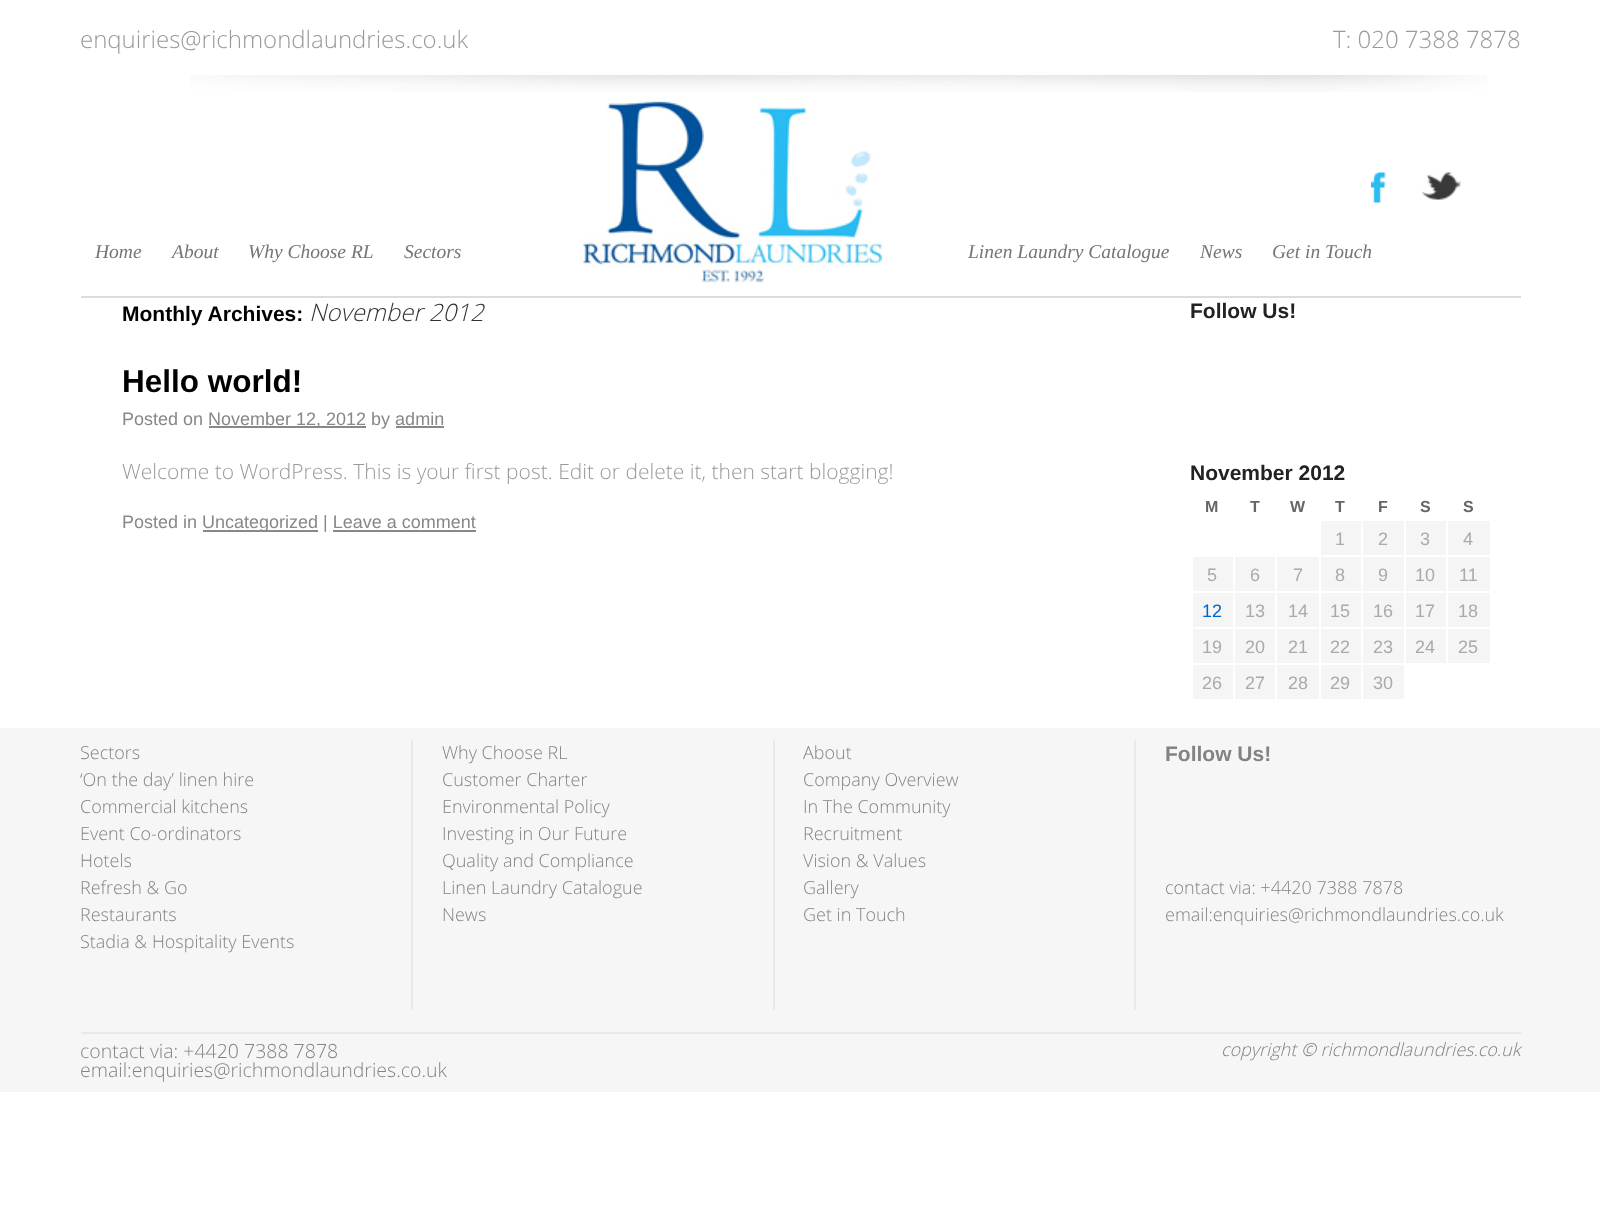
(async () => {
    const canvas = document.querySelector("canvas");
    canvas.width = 1600;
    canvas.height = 1211;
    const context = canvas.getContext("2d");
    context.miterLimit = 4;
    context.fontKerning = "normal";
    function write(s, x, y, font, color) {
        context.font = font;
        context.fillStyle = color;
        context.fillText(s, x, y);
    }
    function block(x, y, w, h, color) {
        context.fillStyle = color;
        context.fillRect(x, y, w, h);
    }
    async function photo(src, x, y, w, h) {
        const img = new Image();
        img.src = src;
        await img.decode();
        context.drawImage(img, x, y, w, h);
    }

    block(0, 0, 1600, 1211, "rgb(255, 255, 255)");
    write("enquiries@richmondlaundries.co.uk", 80, 48, "300 24px Open Sans", "rgb(153, 153, 153)");
    write("T: 020 7388 7878", 1333, 48, "300 24px Open Sans", "rgb(153, 153, 153)");
    await photo("media/1.png", 190, 75, 1297, 17);
    await photo("media/2.png", 1371, 172, 15, 31);
    await photo("media/3.png", 1422, 172, 39, 28);
    block(81, 296, 1440, 2, "rgb(220, 220, 220)");
    write("Home", 95, 258, "italic 19.5px Liberation Serif", "rgb(117, 117, 117)");
    write("About", 172, 258, "italic 19.5px Liberation Serif", "rgb(117, 117, 117)");
    write("Why Choose RL", 248, 258, "italic 19.5px Liberation Serif", "rgb(117, 117, 117)");
    write("Sectors", 404, 258, "italic 19.5px Liberation Serif", "rgb(117, 117, 117)");
    await photo("media/4.png", 583, 101, 299, 182);
    write("Linen Laundry Catalogue", 968, 258, "italic 19.5px Liberation Serif", "rgb(117, 117, 117)");
    write("News", 1200, 258, "italic 19.5px Liberation Serif", "rgb(117, 117, 117)");
    write("Get in Touch", 1272, 258, "italic 19.5px Liberation Serif", "rgb(117, 117, 117)");
    write("Monthly Archives:", 122, 321, "bold 21px Liberation Sans", "rgb(0, 0, 0)");
    write("November 2012", 309, 321, "italic 300 24px Open Sans", "rgb(51, 51, 51)");
    write("Hello world!", 122, 392, "bold 31.5px Liberation Sans", "rgb(0, 0, 0)");
    write("Posted on", 122, 425, "18px Liberation Sans", "rgb(136, 136, 136)");
    block(209, 426, 157, 2, "rgb(136, 136, 136)");
    write("November 12, 2012 by admin", 208, 425, "18px Liberation Sans", "rgb(136, 136, 136)");
    block(396, 426, 48, 2, "rgb(136, 136, 136)");
    write("Welcome to WordPress. This is your first post. Edit or delete it, then start blogging!", 122, 479, "300 21px Open Sans", "rgb(153, 153, 153)");
    write("Posted in", 122, 528, "18px Liberation Sans", "rgb(136, 136, 136)");
    block(203, 530, 115, 2, "rgb(136, 136, 136)");
    write("Uncategorized | Leave a comment", 202, 528, "18px Liberation Sans", "rgb(136, 136, 136)");
    block(333, 530, 143, 2, "rgb(136, 136, 136)");
    write("Follow Us!", 1190, 318, "bold 21px Liberation Sans", "rgb(34, 34, 34)");
    write("November 2012", 1190, 480, "bold 21px Liberation Sans", "rgb(34, 34, 34)");
    write("M", 1205, 512, "bold 16px Liberation Sans", "rgb(102, 102, 102)");
    write("T", 1250, 512, "bold 16px Liberation Sans", "rgb(102, 102, 102)");
    write("W", 1290, 512, "bold 16px Liberation Sans", "rgb(102, 102, 102)");
    write("T", 1335, 512, "bold 16px Liberation Sans", "rgb(102, 102, 102)");
    write("F", 1378, 512, "bold 16px Liberation Sans", "rgb(102, 102, 102)");
    write("S", 1420, 512, "bold 16px Liberation Sans", "rgb(102, 102, 102)");
    write("S", 1463, 512, "bold 16px Liberation Sans", "rgb(102, 102, 102)");
    block(1321, 521, 40, 34, "rgb(245, 245, 245)");
    write("1", 1335, 545, "18px Liberation Sans", "rgb(170, 170, 170)");
    block(1363, 521, 41, 34, "rgb(245, 245, 245)");
    write("2", 1378, 545, "18px Liberation Sans", "rgb(170, 170, 170)");
    block(1406, 521, 40, 34, "rgb(245, 245, 245)");
    write("3", 1420, 545, "18px Liberation Sans", "rgb(170, 170, 170)");
    block(1448, 521, 42, 34, "rgb(245, 245, 245)");
    write("4", 1463, 545, "18px Liberation Sans", "rgb(170, 170, 170)");
    block(1193, 557, 40, 34, "rgb(245, 245, 245)");
    write("5", 1207, 581, "18px Liberation Sans", "rgb(170, 170, 170)");
    block(1235, 557, 40, 34, "rgb(245, 245, 245)");
    write("6", 1250, 581, "18px Liberation Sans", "rgb(170, 170, 170)");
    block(1277, 557, 42, 34, "rgb(245, 245, 245)");
    write("7", 1293, 581, "18px Liberation Sans", "rgb(170, 170, 170)");
    block(1321, 557, 40, 34, "rgb(245, 245, 245)");
    write("8", 1335, 581, "18px Liberation Sans", "rgb(170, 170, 170)");
    block(1363, 557, 41, 34, "rgb(245, 245, 245)");
    write("9", 1378, 581, "18px Liberation Sans", "rgb(170, 170, 170)");
    block(1406, 557, 40, 34, "rgb(245, 245, 245)");
    write("10", 1415, 581, "18px Liberation Sans", "rgb(170, 170, 170)");
    block(1448, 557, 42, 34, "rgb(245, 245, 245)");
    write("11", 1459, 581, "18px Liberation Sans", "rgb(170, 170, 170)");
    block(1193, 593, 40, 34, "rgb(245, 245, 245)");
    write("12", 1202, 617, "18px Liberation Sans", "rgb(0, 102, 204)");
    block(1235, 593, 40, 34, "rgb(245, 245, 245)");
    write("13", 1245, 617, "18px Liberation Sans", "rgb(170, 170, 170)");
    block(1277, 593, 42, 34, "rgb(245, 245, 245)");
    write("14", 1288, 617, "18px Liberation Sans", "rgb(170, 170, 170)");
    block(1321, 593, 40, 34, "rgb(245, 245, 245)");
    write("15", 1330, 617, "18px Liberation Sans", "rgb(170, 170, 170)");
    block(1363, 593, 41, 34, "rgb(245, 245, 245)");
    write("16", 1373, 617, "18px Liberation Sans", "rgb(170, 170, 170)");
    block(1406, 593, 40, 34, "rgb(245, 245, 245)");
    write("17", 1415, 617, "18px Liberation Sans", "rgb(170, 170, 170)");
    block(1448, 593, 42, 34, "rgb(245, 245, 245)");
    write("18", 1458, 617, "18px Liberation Sans", "rgb(170, 170, 170)");
    block(1193, 629, 40, 34, "rgb(245, 245, 245)");
    write("19", 1202, 653, "18px Liberation Sans", "rgb(170, 170, 170)");
    block(1235, 629, 40, 34, "rgb(245, 245, 245)");
    write("20", 1245, 653, "18px Liberation Sans", "rgb(170, 170, 170)");
    block(1277, 629, 42, 34, "rgb(245, 245, 245)");
    write("21", 1288, 653, "18px Liberation Sans", "rgb(170, 170, 170)");
    block(1321, 629, 40, 34, "rgb(245, 245, 245)");
    write("22", 1330, 653, "18px Liberation Sans", "rgb(170, 170, 170)");
    block(1363, 629, 41, 34, "rgb(245, 245, 245)");
    write("23", 1373, 653, "18px Liberation Sans", "rgb(170, 170, 170)");
    block(1406, 629, 40, 34, "rgb(245, 245, 245)");
    write("24", 1415, 653, "18px Liberation Sans", "rgb(170, 170, 170)");
    block(1448, 629, 42, 34, "rgb(245, 245, 245)");
    write("25", 1458, 653, "18px Liberation Sans", "rgb(170, 170, 170)");
    block(1193, 665, 40, 34, "rgb(245, 245, 245)");
    write("26", 1202, 689, "18px Liberation Sans", "rgb(170, 170, 170)");
    block(1235, 665, 40, 34, "rgb(245, 245, 245)");
    write("27", 1245, 689, "18px Liberation Sans", "rgb(170, 170, 170)");
    block(1277, 665, 42, 34, "rgb(245, 245, 245)");
    write("28", 1288, 689, "18px Liberation Sans", "rgb(170, 170, 170)");
    block(1321, 665, 40, 34, "rgb(245, 245, 245)");
    write("29", 1330, 689, "18px Liberation Sans", "rgb(170, 170, 170)");
    block(1363, 665, 41, 34, "rgb(245, 245, 245)");
    write("30", 1373, 689, "18px Liberation Sans", "rgb(170, 170, 170)");
    block(0, 728, 1600, 364, "rgb(246, 246, 246)");
    block(411, 740, 2, 270, "rgb(232, 233, 233)");
    write("Sectors", 80, 759, "300 18px Open Sans", "rgb(130, 131, 131)");
    write("‘On the day’ linen hire", 80, 786, "300 18px Open Sans", "rgb(130, 131, 131)");
    write("Commercial kitchens", 80, 813, "300 18px Open Sans", "rgb(130, 131, 131)");
    write("Event Co-ordinators", 80, 840, "300 18px Open Sans", "rgb(130, 131, 131)");
    write("Hotels", 80, 867, "300 18px Open Sans", "rgb(130, 131, 131)");
    write("Refresh & Go", 80, 894, "300 18px Open Sans", "rgb(130, 131, 131)");
    write("Restaurants", 80, 921, "300 18px Open Sans", "rgb(130, 131, 131)");
    write("Stadia & Hospitality Events", 80, 948, "300 18px Open Sans", "rgb(130, 131, 131)");
    block(773, 740, 2, 270, "rgb(232, 233, 233)");
    write("Why Choose RL", 442, 759, "300 18px Open Sans", "rgb(130, 131, 131)");
    write("Customer Charter", 442, 786, "300 18px Open Sans", "rgb(130, 131, 131)");
    write("Environmental Policy", 442, 813, "300 18px Open Sans", "rgb(130, 131, 131)");
    write("Investing in Our Future", 442, 840, "300 18px Open Sans", "rgb(130, 131, 131)");
    write("Quality and Compliance", 442, 867, "300 18px Open Sans", "rgb(130, 131, 131)");
    write("Linen Laundry Catalogue", 442, 894, "300 18px Open Sans", "rgb(130, 131, 131)");
    write("News", 442, 921, "300 18px Open Sans", "rgb(130, 131, 131)");
    block(1134, 740, 2, 270, "rgb(232, 233, 233)");
    write("About", 803, 759, "300 18px Open Sans", "rgb(130, 131, 131)");
    write("Company Overview", 803, 786, "300 18px Open Sans", "rgb(130, 131, 131)");
    write("In The Community", 803, 813, "300 18px Open Sans", "rgb(130, 131, 131)");
    write("Recruitment", 803, 840, "300 18px Open Sans", "rgb(130, 131, 131)");
    write("Vision & Values", 803, 867, "300 18px Open Sans", "rgb(130, 131, 131)");
    write("Gallery", 803, 894, "300 18px Open Sans", "rgb(130, 131, 131)");
    write("Get in Touch", 803, 921, "300 18px Open Sans", "rgb(130, 131, 131)");
    write("Follow Us!", 1165, 761, "bold 21px Liberation Sans", "rgb(130, 131, 131)");
    write("contact via: +4420 7388 7878", 1165, 894, "300 18px Open Sans", "rgb(130, 131, 131)");
    write("email:enquiries@richmondlaundries.co.uk", 1165, 921, "300 18px Open Sans", "rgb(130, 131, 131)");
    block(81, 1032, 1440, 2, "rgb(232, 233, 233)");
    write("contact via: +4420 7388 7878", 80, 1058, "300 19.5px Open Sans", "rgb(130, 131, 131)");
    write("email:enquiries@richmondlaundries.co.uk", 80, 1077, "300 19.5px Open Sans", "rgb(130, 131, 131)");
    write("copyright © richmondlaundries.co.uk", 1221, 1056, "italic 300 18px Open Sans", "rgb(130, 131, 131)");
})();
